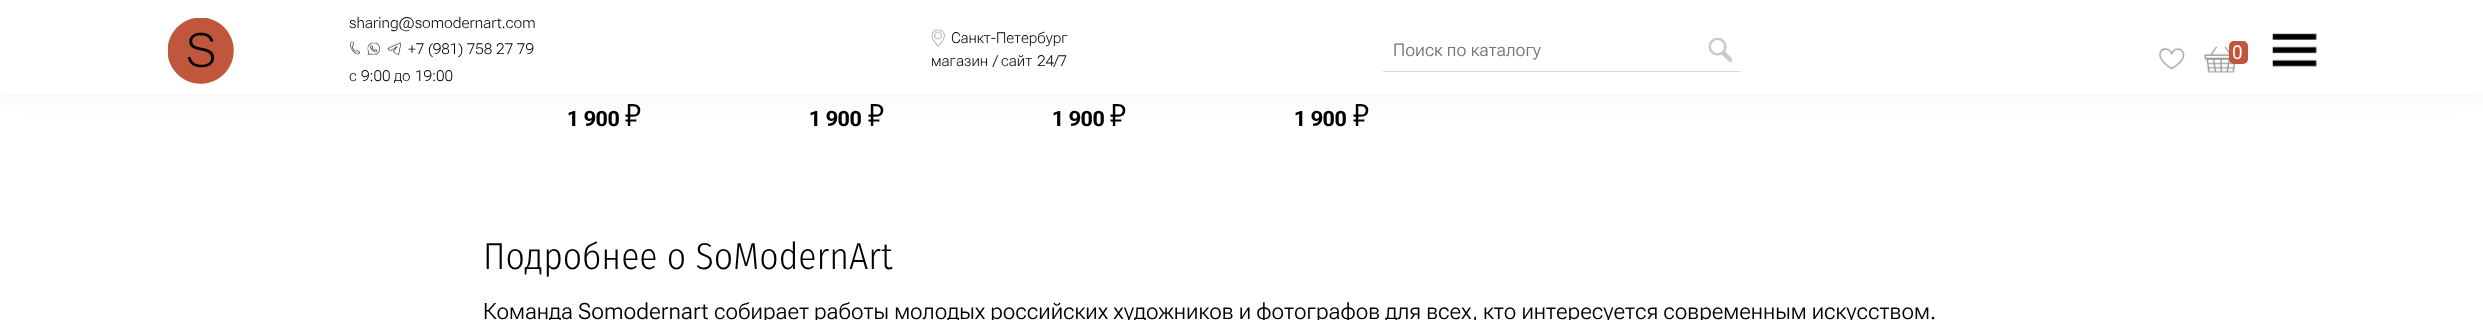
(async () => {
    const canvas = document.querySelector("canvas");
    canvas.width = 2483;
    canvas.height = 320;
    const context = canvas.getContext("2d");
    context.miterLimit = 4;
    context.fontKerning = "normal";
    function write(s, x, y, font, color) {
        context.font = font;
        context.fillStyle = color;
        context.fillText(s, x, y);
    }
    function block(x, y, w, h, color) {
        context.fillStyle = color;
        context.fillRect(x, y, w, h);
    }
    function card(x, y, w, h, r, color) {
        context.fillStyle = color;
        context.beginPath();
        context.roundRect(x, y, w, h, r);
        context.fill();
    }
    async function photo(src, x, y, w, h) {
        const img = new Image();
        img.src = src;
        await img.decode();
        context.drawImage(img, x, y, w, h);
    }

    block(0, 0, 2483, 320, "rgb(255, 255, 255)");
    context.fillStyle = "rgba(205, 204, 204, 0.25)";
    context.filter = "blur(13px)";
    context.beginPath();
    context.rect(0, 0, 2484, 94);
    context.fill();
    context.filter = "none";
    block(0, 0, 2483, 94, "rgb(255, 255, 255)");
    await photo("media/1.png", 168, 18, 66, 66);
    write("sharing@somodernart.com", 349, 28, "200 15px Roboto Flex", "rgb(0, 0, 0)");
    await photo("media/2.png", 350, 40, 10, 15);
    await photo("media/3.png", 367, 42, 13, 14);
    await photo("media/4.png", 387, 42, 15, 14);
    write("+7 (981) 758 27 79", 408, 54, "200 15px Roboto Flex", "rgb(0, 0, 0)");
    write("с", 349, 81, "200 15px 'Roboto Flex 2'", "rgb(0, 0, 0)");
    write("9:00", 361, 81, "200 15px Roboto Flex", "rgb(0, 0, 0)");
    write("до", 394, 81, "200 15px 'Roboto Flex 2'", "rgb(0, 0, 0)");
    write("19:00", 415, 81, "200 15px Roboto Flex", "rgb(0, 0, 0)");
    await photo("media/5.png", 931, 29, 14, 18);
    write("Санкт", 951, 43, "200 15px 'Roboto Flex 2'", "rgb(0, 0, 0)");
    write("-", 991, 43, "200 15px Roboto Flex", "rgb(0, 0, 0)");
    write("Петербург", 996, 43, "200 15px 'Roboto Flex 2'", "rgb(0, 0, 0)");
    write("магазин", 931, 66, "200 15px 'Roboto Flex 2'", "rgb(0, 0, 0)");
    write("/", 993, 66, "200 15px Roboto Flex", "rgb(0, 0, 0)");
    write("сайт", 1001, 66, "200 15px 'Roboto Flex 2'", "rgb(0, 0, 0)");
    write("24/7", 1037, 66, "200 15px Roboto Flex", "rgb(0, 0, 0)");
    block(1383, 71, 358, 1, "rgb(219, 219, 219)");
    write("Поиск по каталогу", 1393, 56, "300 17.5px 'Roboto Flex 2'", "rgb(117, 117, 117)");
    await photo("media/6.png", 1708, 38, 24, 24);
    await photo("media/7.png", 2158, 47, 27, 23);
    await photo("media/8.png", 2203, 46, 33, 27);
    card(2229, 41, 19, 23, 5, "rgb(192, 86, 60)");
    write("0", 2232, 59, "19px Roboto", "rgb(255, 255, 255)");
    await photo("media/9.png", 2272, 33, 45, 34);
    write("1 900", 567, 126, "bold 21px Roboto Flex", "rgb(0, 0, 0)");
    write("₽", 625, 126, "31px Roboto Flex", "rgb(0, 0, 0)");
    write("1 900", 809, 126, "bold 21px Roboto Flex", "rgb(0, 0, 0)");
    write("₽", 868, 126, "31px Roboto Flex", "rgb(0, 0, 0)");
    write("1 900", 1052, 126, "bold 21px Roboto Flex", "rgb(0, 0, 0)");
    write("₽", 1110, 126, "31px Roboto Flex", "rgb(0, 0, 0)");
    write("1 900", 1294, 126, "bold 21px Roboto Flex", "rgb(0, 0, 0)");
    write("₽", 1353, 126, "31px Roboto Flex", "rgb(0, 0, 0)");
    write("Подробнее о SoModernArt", 483, 269, "300 37.5px Fira Sans Condensed", "rgb(0, 0, 0)");
    write("Команда", 483, 319, "300 22.5px Roboto Flex", "rgb(0, 0, 0)");
    write("Somodernart", 578, 319, "300 22.5px 'Roboto Flex 2'", "rgb(0, 0, 0)");
    context.wordSpacing = "-0.25px";
    write("собирает работы молодых российских художников и фотографов для всех", 714, 319, "300 22.5px Roboto Flex", "rgb(0, 0, 0)");
    context.wordSpacing = "0px";
    write(",", 1472, 319, "300 22.5px 'Roboto Flex 2'", "rgb(0, 0, 0)");
    context.wordSpacing = "-0.25px";
    write("кто интересуется современным искусством", 1483, 319, "300 22.5px Roboto Flex", "rgb(0, 0, 0)");
    context.wordSpacing = "0px";
    write(".", 1930, 319, "300 22.5px 'Roboto Flex 2'", "rgb(0, 0, 0)");
})();
